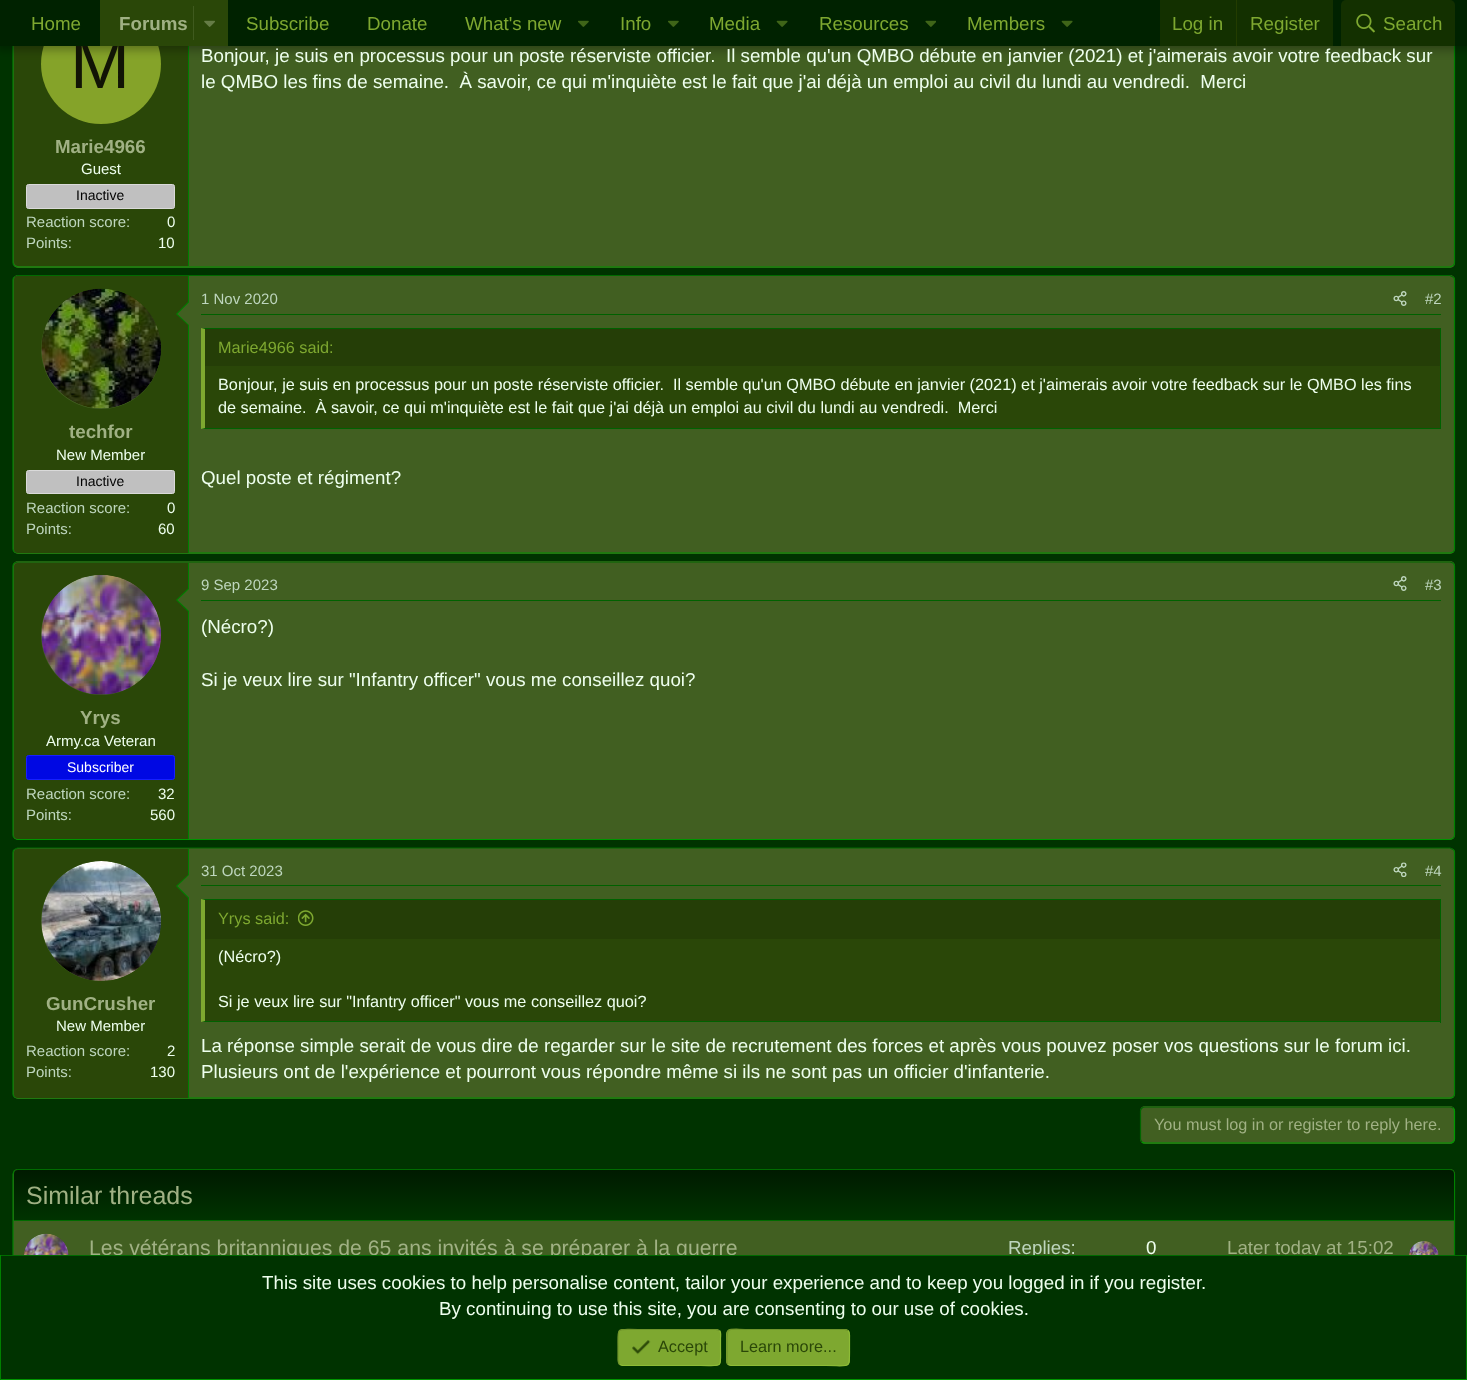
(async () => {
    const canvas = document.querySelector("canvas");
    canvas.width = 1467;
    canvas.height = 1380;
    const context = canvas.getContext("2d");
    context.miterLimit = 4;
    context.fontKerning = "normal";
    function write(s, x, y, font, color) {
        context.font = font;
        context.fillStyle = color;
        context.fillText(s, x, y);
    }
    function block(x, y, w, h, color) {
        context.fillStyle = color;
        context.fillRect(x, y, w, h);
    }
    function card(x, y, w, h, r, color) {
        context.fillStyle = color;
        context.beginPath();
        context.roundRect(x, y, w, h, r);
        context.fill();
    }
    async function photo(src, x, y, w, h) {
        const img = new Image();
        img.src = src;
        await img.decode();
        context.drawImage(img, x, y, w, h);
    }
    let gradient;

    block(0, 0, 1467, 1380, "rgb(0, 51, 0)");
    card(13, -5, 1442, 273, 5, "rgb(65, 95, 33)");
    context.beginPath();
    context.moveTo(1453, -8);
    context.bezierCurveTo(1454, -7.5, 1454.5, -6, 1454.5, -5);
    context.lineTo(1454.5, 262.5);
    context.bezierCurveTo(1454.5, 263.5, 1454, 265, 1453, 265.5);
    context.strokeStyle = "rgb(0, 128, 0)";
    context.lineWidth = 1.2;
    context.stroke();
    context.beginPath();
    context.moveTo(1453, 265.5);
    context.lineTo(1450, 267);
    context.lineTo(17.5, 267);
    context.lineTo(14.5, 265.5);
    context.strokeStyle = "rgb(0, 148, 0)";
    context.stroke();
    context.beginPath();
    context.moveTo(14.5, 265.5);
    context.bezierCurveTo(13.5, 265, 13, 263.5, 13, 262.5);
    context.lineTo(13, -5);
    context.bezierCurveTo(13, -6, 13.5, -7.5, 14.5, -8);
    context.strokeStyle = "rgb(0, 128, 0)";
    context.stroke();
    context.fillStyle = "rgb(42, 71, 8)";
    context.beginPath();
    context.moveTo(18, -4);
    context.lineTo(189, -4);
    context.lineTo(189, 266);
    context.lineTo(18, 266);
    context.bezierCurveTo(16, 266, 14, 264, 14, 262);
    context.lineTo(14, 0);
    context.bezierCurveTo(14, -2, 16, -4, 18, -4);
    context.closePath();
    context.fill();
    block(188, 46, 1, 220, "rgb(0, 128, 0)");
    context.fillStyle = "rgb(133, 163, 41)";
    context.beginPath();
    context.arc(101, 64, 60, 0, Math.PI * 2);
    context.fill();
    context.fillStyle = "rgba(0, 0, 0, 0.3)";
    context.filter = "blur(5px)";
    context.beginPath();
    context.rect(-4, -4, 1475, 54);
    context.fill();
    context.filter = "none";
    write("M", 70, 88, "72px Liberation Sans", "rgb(17, 20, 5)");
    block(0, 0, 1467, 46, "rgb(0, 34, 0)");
    write("Home", 31, 30, "18.75px Liberation Sans", "rgb(126, 168, 48)");
    block(100, 0, 128, 46, "rgb(42, 71, 8)");
    write("Forums", 119, 30, "bold 18.75px Liberation Sans", "rgb(160, 177, 132)");
    block(193, 6, 1, 34, "rgb(63, 90, 30)");
    await photo("media/1.png", 204, 20, 11, 7);
    write("Subscribe", 246, 30, "18.75px Liberation Sans", "rgb(126, 168, 48)");
    write("Donate", 367, 30, "18.75px Liberation Sans", "rgb(126, 168, 48)");
    write("What's new", 465, 30, "18.75px Liberation Sans", "rgb(126, 168, 48)");
    await photo("media/2.png", 578, 20, 11, 7);
    write("Info", 620, 30, "18.75px Liberation Sans", "rgb(126, 168, 48)");
    await photo("media/2.png", 668, 20, 11, 7);
    write("Media", 709, 30, "18.75px Liberation Sans", "rgb(126, 168, 48)");
    await photo("media/3.png", 776, 20, 12, 7);
    write("Resources", 819, 30, "18.75px Liberation Sans", "rgb(126, 168, 48)");
    await photo("media/4.png", 925, 20, 11, 7);
    write("Members", 967, 30, "18.75px Liberation Sans", "rgb(126, 168, 48)");
    await photo("media/3.png", 1061, 20, 12, 7);
    block(1160, 0, 173, 46, "rgb(19, 48, 0)");
    write("Log in", 1172, 30, "18.75px Liberation Sans", "rgb(126, 168, 48)");
    block(1236, 0, 1, 46, "rgb(35, 60, 0)");
    write("Register", 1250, 30, "18.75px Liberation Sans", "rgb(126, 168, 48)");
    context.fillStyle = "rgb(19, 48, 0)";
    context.beginPath();
    context.roundRect(1341, 0, 114, 46, [5, 5, 0, 0]);
    context.fill();
    await photo("media/5.png", 1356, 14, 19, 19);
    write("Search", 1383, 30, "18.75px Liberation Sans", "rgb(126, 168, 48)");
    write("Marie4966", 55, 153, "bold 18.75px Liberation Sans", "rgb(160, 177, 132)");
    write("Guest", 81, 174, "15px Liberation Sans", "rgb(238, 255, 238)");
    context.fillStyle = "rgb(192, 192, 192)";
    context.beginPath();
    context.roundRect(26.5, 184.5, 148, 24, 2);
    context.fill();
    context.strokeStyle = "rgb(218, 218, 218)";
    context.lineWidth = 1;
    context.stroke();
    write("Inactive", 76, 200, "14px Liberation Sans", "rgb(0, 0, 0)");
    write("Reaction score:", 26, 227, "15px Liberation Sans", "rgb(190, 214, 190)");
    write("0", 167, 227, "15px Liberation Sans", "rgb(238, 255, 238)");
    write("Points:", 26, 248, "15px Liberation Sans", "rgb(190, 214, 190)");
    write("10", 158, 248, "15px Liberation Sans", "rgb(238, 255, 238)");
    write("Bonjour, je suis en processus pour un poste réserviste officier.  Il semble qu'un QMBO débute en janvier (2021) et j'aimerais avoir votre feedback sur", 201, 62, "18.75px Liberation Sans", "rgb(238, 255, 238)");
    write("le QMBO les fins de semaine.  À savoir, ce qui m'inquiète est le fait que j'ai déjà un emploi au civil du lundi au vendredi.  Merci", 201, 88, "18.75px Liberation Sans", "rgb(238, 255, 238)");
    card(13, 275, 1442, 279, 5, "rgb(65, 95, 33)");
    context.beginPath();
    context.moveTo(14.5, 277);
    context.lineTo(17.5, 275.5);
    context.lineTo(1450, 275.5);
    context.lineTo(1453, 277);
    context.strokeStyle = "rgb(0, 107, 0)";
    context.lineWidth = 1.2;
    context.stroke();
    context.beginPath();
    context.moveTo(1453, 277);
    context.bezierCurveTo(1454, 277.5, 1454.5, 279, 1454.5, 280);
    context.lineTo(1454.5, 549);
    context.bezierCurveTo(1454.5, 550, 1454, 551, 1453, 552);
    context.strokeStyle = "rgb(0, 128, 0)";
    context.stroke();
    context.beginPath();
    context.moveTo(1453, 552);
    context.lineTo(1450, 553);
    context.lineTo(17.5, 553);
    context.lineTo(14.5, 552);
    context.strokeStyle = "rgb(0, 148, 0)";
    context.stroke();
    context.beginPath();
    context.moveTo(14.5, 552);
    context.bezierCurveTo(13.5, 551, 13, 550, 13, 549);
    context.lineTo(13, 280);
    context.bezierCurveTo(13, 279, 13.5, 277.5, 14.5, 277);
    context.strokeStyle = "rgb(0, 128, 0)";
    context.stroke();
    context.fillStyle = "rgb(42, 71, 8)";
    context.beginPath();
    context.roundRect(14, 276, 175, 277, [4, 0, 0, 4]);
    context.fill();
    block(188, 276, 1, 277, "rgb(0, 128, 0)");
    context.fillStyle = "rgb(65, 95, 33)";
    context.beginPath();
    context.arc(101, 349, 60, 0, Math.PI * 2);
    context.fill();
    await photo("media/6.png", 41, 288, 120, 121);
    context.fillStyle = "rgb(0, 128, 0)";
    context.beginPath();
    context.moveTo(189, 301);
    context.lineTo(189, 326);
    context.lineTo(176, 314);
    context.closePath();
    context.fill();
    context.fillStyle = "rgb(65, 95, 33)";
    context.beginPath();
    context.moveTo(189, 302.5);
    context.lineTo(189, 325);
    context.lineTo(177.5, 314);
    context.closePath();
    context.fill();
    write("techfor", 69, 438, "bold 18.75px Liberation Sans", "rgb(160, 177, 132)");
    write("New Member", 56, 460, "15px Liberation Sans", "rgb(238, 255, 238)");
    context.fillStyle = "rgb(192, 192, 192)";
    context.beginPath();
    context.roundRect(26.5, 470.5, 148, 23, 2);
    context.fill();
    context.strokeStyle = "rgb(218, 218, 218)";
    context.lineWidth = 1;
    context.stroke();
    write("Inactive", 76, 486, "14px Liberation Sans", "rgb(0, 0, 0)");
    write("Reaction score:", 26, 513, "15px Liberation Sans", "rgb(190, 214, 190)");
    write("0", 167, 513, "15px Liberation Sans", "rgb(238, 255, 238)");
    write("Points:", 26, 534, "15px Liberation Sans", "rgb(190, 214, 190)");
    write("60", 158, 534, "15px Liberation Sans", "rgb(238, 255, 238)");
    block(201, 314, 1240, 1, "rgb(0, 97, 0)");
    write("1 Nov 2020", 201, 304, "15px Liberation Sans", "rgb(190, 214, 190)");
    await photo("media/7.png", 1393, 291, 14, 15);
    write("#2", 1425, 304, "15px Liberation Sans", "rgb(190, 214, 190)");
    block(205, 366, 1235, 62, "rgb(42, 71, 8)");
    context.fillStyle = "rgb(0, 97, 0)";
    context.beginPath();
    context.moveTo(201, 328);
    context.lineTo(1441, 328);
    context.lineTo(1440, 329);
    context.lineTo(205, 329);
    context.closePath();
    context.fill();
    block(1440, 328, 1, 101, "rgb(0, 97, 0)");
    context.beginPath();
    context.moveTo(1441, 429);
    context.lineTo(201, 429);
    context.lineTo(205, 428);
    context.lineTo(1440, 428);
    context.closePath();
    context.fill();
    context.fillStyle = "rgb(126, 168, 48)";
    context.beginPath();
    context.moveTo(201, 429);
    context.lineTo(201, 328);
    context.lineTo(205, 329);
    context.lineTo(205, 428);
    context.closePath();
    context.fill();
    block(205, 329, 1235, 37, "rgb(37, 62, 7)");
    write("Marie4966 said:", 218, 353, "16.25px Liberation Sans", "rgb(126, 168, 48)");
    write("Bonjour, je suis en processus pour un poste réserviste officier.  Il semble qu'un QMBO débute en janvier (2021) et j'aimerais avoir votre feedback sur le QMBO les fins", 218, 390, "16.25px Liberation Sans", "rgb(238, 255, 238)");
    write("de semaine.  À savoir, ce qui m'inquiète est le fait que j'ai déjà un emploi au civil du lundi au vendredi.  Merci", 218, 413, "16.25px Liberation Sans", "rgb(238, 255, 238)");
    write("Quel poste et régiment?", 201, 484, "18.75px Liberation Sans", "rgb(238, 255, 238)");
    card(13, 561, 1442, 279, 5, "rgb(65, 95, 33)");
    context.beginPath();
    context.moveTo(14.5, 563);
    context.lineTo(17.5, 562);
    context.lineTo(1450, 562);
    context.lineTo(1453, 563);
    context.strokeStyle = "rgb(0, 107, 0)";
    context.lineWidth = 1.2;
    context.stroke();
    context.beginPath();
    context.moveTo(1453, 563);
    context.bezierCurveTo(1454, 564, 1454.5, 565, 1454.5, 566);
    context.lineTo(1454.5, 835);
    context.bezierCurveTo(1454.5, 836, 1454, 837.5, 1453, 838);
    context.strokeStyle = "rgb(0, 128, 0)";
    context.stroke();
    context.beginPath();
    context.moveTo(1453, 838);
    context.lineTo(1450, 839.5);
    context.lineTo(17.5, 839.5);
    context.lineTo(14.5, 838);
    context.strokeStyle = "rgb(0, 148, 0)";
    context.stroke();
    context.beginPath();
    context.moveTo(14.5, 838);
    context.bezierCurveTo(13.5, 837.5, 13, 836, 13, 835);
    context.lineTo(13, 566);
    context.bezierCurveTo(13, 565, 13.5, 564, 14.5, 563);
    context.strokeStyle = "rgb(0, 128, 0)";
    context.stroke();
    block(201, 600, 1240, 1, "rgb(0, 97, 0)");
    write("9 Sep 2023", 201, 590, "15px Liberation Sans", "rgb(190, 214, 190)");
    await photo("media/7.png", 1393, 576, 14, 15);
    write("#3", 1425, 590, "15px Liberation Sans", "rgb(190, 214, 190)");
    write("(Nécro?)", 201, 633, "18.75px Liberation Sans", "rgb(238, 255, 238)");
    write("Si je veux lire sur \"Infantry officer\" vous me conseillez quoi?", 201, 686, "18.75px Liberation Sans", "rgb(238, 255, 238)");
    context.fillStyle = "rgb(42, 71, 8)";
    context.beginPath();
    context.roundRect(14, 563, 175, 276, [4, 0, 0, 4]);
    context.fill();
    block(188, 563, 1, 276, "rgb(0, 128, 0)");
    context.fillStyle = "rgb(65, 95, 33)";
    context.beginPath();
    context.arc(101, 635, 60, 0, Math.PI * 2);
    context.fill();
    await photo("media/8.png", 41, 575, 120, 120);
    context.fillStyle = "rgb(0, 128, 0)";
    context.beginPath();
    context.moveTo(189, 587.5);
    context.lineTo(189, 612.5);
    context.lineTo(176, 600);
    context.closePath();
    context.fill();
    context.fillStyle = "rgb(65, 95, 33)";
    context.beginPath();
    context.moveTo(189, 589);
    context.lineTo(189, 611);
    context.lineTo(177.5, 600);
    context.closePath();
    context.fill();
    write("Yrys", 80, 724, "bold 18.75px Liberation Sans", "rgb(160, 177, 132)");
    write("Army.ca Veteran", 46, 746, "15px Liberation Sans", "rgb(238, 255, 238)");
    context.fillStyle = "rgb(0, 8, 227)";
    context.beginPath();
    context.roundRect(26.5, 755.5, 148, 24, 2);
    context.fill();
    context.strokeStyle = "rgb(23, 31, 255)";
    context.lineWidth = 1;
    context.stroke();
    write("Subscriber", 67, 772, "14px Liberation Sans", "rgb(255, 255, 255)");
    write("Reaction score:", 26, 799, "15px Liberation Sans", "rgb(190, 214, 190)");
    write("32", 158, 799, "15px Liberation Sans", "rgb(238, 255, 238)");
    write("Points:", 26, 820, "15px Liberation Sans", "rgb(190, 214, 190)");
    write("560", 150, 820, "15px Liberation Sans", "rgb(238, 255, 238)");
    card(13, 848, 1442, 251, 5, "rgb(65, 95, 33)");
    context.beginPath();
    context.moveTo(14.5, 849.5);
    context.lineTo(17.5, 848);
    context.lineTo(1450, 848);
    context.lineTo(1453, 849.5);
    context.strokeStyle = "rgb(0, 107, 0)";
    context.lineWidth = 1.2;
    context.stroke();
    context.beginPath();
    context.moveTo(1453, 849.5);
    context.bezierCurveTo(1454, 850, 1454.5, 851.5, 1454.5, 852.5);
    context.lineTo(1454.5, 1094);
    context.bezierCurveTo(1454.5, 1095, 1454, 1096, 1453, 1097);
    context.strokeStyle = "rgb(0, 128, 0)";
    context.stroke();
    context.beginPath();
    context.moveTo(1453, 1097);
    context.lineTo(1450, 1098);
    context.lineTo(17.5, 1098);
    context.lineTo(14.5, 1097);
    context.strokeStyle = "rgb(0, 148, 0)";
    context.stroke();
    context.beginPath();
    context.moveTo(14.5, 1097);
    context.bezierCurveTo(13.5, 1096, 13, 1095, 13, 1094);
    context.lineTo(13, 852.5);
    context.bezierCurveTo(13, 851.5, 13.5, 850, 14.5, 849.5);
    context.strokeStyle = "rgb(0, 128, 0)";
    context.stroke();
    context.fillStyle = "rgb(42, 71, 8)";
    context.beginPath();
    context.roundRect(14, 849, 175, 249, [4, 0, 0, 4]);
    context.fill();
    block(188, 849, 1, 249, "rgb(0, 128, 0)");
    context.fillStyle = "rgb(65, 95, 33)";
    context.beginPath();
    context.arc(101, 921, 60, 0, Math.PI * 2);
    context.fill();
    await photo("media/9.png", 41, 861, 120, 120);
    context.fillStyle = "rgb(0, 128, 0)";
    context.beginPath();
    context.moveTo(189, 874);
    context.lineTo(189, 899);
    context.lineTo(176, 886);
    context.closePath();
    context.fill();
    context.fillStyle = "rgb(65, 95, 33)";
    context.beginPath();
    context.moveTo(189, 875);
    context.lineTo(189, 897.5);
    context.lineTo(177.5, 886);
    context.closePath();
    context.fill();
    write("GunCrusher", 46, 1010, "bold 18.75px Liberation Sans", "rgb(160, 177, 132)");
    write("New Member", 56, 1031, "15px Liberation Sans", "rgb(238, 255, 238)");
    write("Reaction score:", 26, 1056, "15px Liberation Sans", "rgb(190, 214, 190)");
    write("2", 167, 1056, "15px Liberation Sans", "rgb(238, 255, 238)");
    write("Points:", 26, 1077, "15px Liberation Sans", "rgb(190, 214, 190)");
    write("130", 150, 1077, "15px Liberation Sans", "rgb(238, 255, 238)");
    block(201, 885, 1240, 1, "rgb(0, 97, 0)");
    write("31 Oct 2023", 201, 876, "15px Liberation Sans", "rgb(190, 214, 190)");
    await photo("media/10.png", 1393, 862, 14, 15);
    write("#4", 1425, 876, "15px Liberation Sans", "rgb(190, 214, 190)");
    block(205, 939, 1235, 82, "rgb(42, 71, 8)");
    context.fillStyle = "rgb(0, 97, 0)";
    context.beginPath();
    context.moveTo(201, 899);
    context.lineTo(1441, 899);
    context.lineTo(1440, 900);
    context.lineTo(205, 900);
    context.closePath();
    context.fill();
    block(1440, 899, 1, 124, "rgb(0, 97, 0)");
    context.beginPath();
    context.moveTo(1441, 1022);
    context.lineTo(201, 1022);
    context.lineTo(205, 1021);
    context.lineTo(1440, 1021);
    context.closePath();
    context.fill();
    context.fillStyle = "rgb(126, 168, 48)";
    context.beginPath();
    context.moveTo(201, 1022);
    context.lineTo(201, 899);
    context.lineTo(205, 900);
    context.lineTo(205, 1021);
    context.closePath();
    context.fill();
    block(205, 900, 1235, 39, "rgb(37, 62, 7)");
    write("Yrys said:", 218, 924, "16.25px Liberation Sans", "rgb(126, 168, 48)");
    await photo("media/11.png", 298, 910, 16, 16);
    write("(Nécro?)", 218, 962, "16.25px Liberation Sans", "rgb(238, 255, 238)");
    write("Si je veux lire sur \"Infantry officer\" vous me conseillez quoi?", 218, 1007, "16.25px Liberation Sans", "rgb(238, 255, 238)");
    write("La réponse simple serait de vous dire de regarder sur le site de recrutement des forces et après vous pouvez poser vos questions sur le forum ici.", 201, 1052, "18.75px Liberation Sans", "rgb(238, 255, 238)");
    write("Plusieurs ont de l'expérience et pourront vous répondre même si ils ne sont pas un officier d'infanterie.", 201, 1078, "18.75px Liberation Sans", "rgb(238, 255, 238)");
    card(1140, 1106, 315, 38, 5, "rgb(65, 95, 33)");
    context.beginPath();
    context.moveTo(1453, 1108);
    context.bezierCurveTo(1454, 1109, 1454.5, 1110, 1454.5, 1111);
    context.lineTo(1454.5, 1139);
    context.bezierCurveTo(1454.5, 1140, 1454, 1141, 1453, 1142);
    context.bezierCurveTo(1452.5, 1142.5, 1451, 1143, 1450, 1143);
    context.lineTo(1145, 1143);
    context.bezierCurveTo(1144, 1143, 1142.5, 1142.5, 1142, 1142);
    context.strokeStyle = "rgb(0, 153, 0)";
    context.stroke();
    context.beginPath();
    context.moveTo(1142, 1142);
    context.bezierCurveTo(1141, 1141, 1140.5, 1140, 1140.5, 1139);
    context.lineTo(1140.5, 1111);
    context.bezierCurveTo(1140.5, 1110, 1141, 1109, 1142, 1108);
    context.bezierCurveTo(1142.5, 1107.5, 1144, 1107, 1145, 1107);
    context.lineTo(1450, 1107);
    context.bezierCurveTo(1451, 1107, 1452.5, 1107.5, 1453, 1108);
    context.strokeStyle = "rgb(0, 102, 0)";
    context.stroke();
    write("You must log in or register to reply here.", 1154, 1130, "16.25px Liberation Sans", "rgb(160, 177, 132)");
    card(13, 1169, 1442, 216, 5, "rgb(65, 95, 33)");
    context.beginPath();
    context.moveTo(14.5, 1170.5);
    context.lineTo(17.5, 1169.5);
    context.lineTo(1450, 1169.5);
    context.lineTo(1453, 1170.5);
    context.strokeStyle = "rgb(0, 107, 0)";
    context.stroke();
    context.beginPath();
    context.moveTo(1453, 1170.5);
    context.lineTo(1454.5, 1174);
    context.lineTo(1454.5, 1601);
    context.lineTo(1453, 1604.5);
    context.strokeStyle = "rgb(0, 128, 0)";
    context.stroke();
    context.beginPath();
    context.moveTo(14.5, 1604.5);
    context.lineTo(13, 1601);
    context.lineTo(13, 1174);
    context.lineTo(14.5, 1170.5);
    context.stroke();
    gradient = context.createLinearGradient(734, 1220, 734, 1170);
    gradient.addColorStop(0, "rgb(0, 51, 0)");
    gradient.addColorStop(1, "rgb(0, 26, 0)");
    context.fillStyle = gradient;
    context.beginPath();
    context.roundRect(14, 1170, 1440, 50, [4, 4, 0, 0]);
    context.fill();
    block(14, 1220, 1440, 1, "rgb(0, 107, 0)");
    write("Similar threads", 26, 1204, "25px Liberation Sans", "rgb(160, 177, 132)");
    await photo("media/12.png", 24, 1233, 45, 22);
    write("Les vétérans britanniques de 65 ans invités à se préparer à la guerre", 89, 1255, "21.25px Liberation Sans", "rgb(160, 177, 132)");
    write("Replies:", 1008, 1254, "18.75px Liberation Sans", "rgb(190, 214, 190)");
    write("0", 1146, 1254, "18.75px Liberation Sans", "rgb(238, 255, 238)");
    write("Later today at 15:02", 1227, 1254, "18.75px Liberation Sans", "rgb(160, 177, 132)");
    await photo("media/13.png", 1409, 1241, 30, 14);
    block(12, 1256, 1444, 123, "rgb(0, 51, 0)");
    block(0, 1255, 1467, 1, "rgb(0, 107, 0)");
    block(1466, 1255, 1, 125, "rgb(0, 128, 0)");
    block(0, 1379, 1467, 1, "rgb(0, 148, 0)");
    block(0, 1255, 1, 125, "rgb(0, 128, 0)");
    write("This site uses cookies to help personalise content, tailor your experience and to keep you logged in if you register.", 262, 1289, "18.75px Liberation Sans", "rgb(238, 255, 238)");
    write("By continuing to use this site, you are consenting to our use of cookies.", 439, 1315, "18.75px Liberation Sans", "rgb(238, 255, 238)");
    card(618, 1329, 103, 37, 5, "rgb(126, 168, 48)");
    context.beginPath();
    context.moveTo(719.5, 1330.5);
    context.bezierCurveTo(721.5, 1332.5, 720.5, 1336, 720.5, 1338.5);
    context.lineTo(720.5, 1347.5);
    context.bezierCurveTo(720.5, 1369, 723.5, 1365.5, 700.5, 1365.5);
    context.lineTo(622.5, 1365.5);
    context.lineTo(619.5, 1364.5);
    context.strokeStyle = "rgb(141, 188, 54)";
    context.stroke();
    context.beginPath();
    context.moveTo(619.5, 1364.5);
    context.bezierCurveTo(617.5, 1362.5, 618, 1359, 618, 1356.5);
    context.lineTo(618, 1347.5);
    context.bezierCurveTo(618, 1326, 615.5, 1329.5, 638, 1329.5);
    context.lineTo(716, 1329.5);
    context.lineTo(719.5, 1330.5);
    context.strokeStyle = "rgb(111, 148, 42)";
    context.stroke();
    await photo("media/14.png", 632, 1340, 19, 15);
    write("Accept", 658, 1352, "16.25px Liberation Sans", "rgb(42, 71, 8)");
    card(726, 1329, 124, 37, 5, "rgb(126, 168, 48)");
    context.beginPath();
    context.moveTo(848, 1330.5);
    context.bezierCurveTo(850, 1332.5, 849.5, 1336, 849.5, 1338.5);
    context.lineTo(849.5, 1347.5);
    context.bezierCurveTo(849.5, 1370, 851.5, 1365.5, 826, 1365.5);
    context.lineTo(731, 1365.5);
    context.lineTo(728, 1364.5);
    context.strokeStyle = "rgb(141, 188, 54)";
    context.stroke();
    context.beginPath();
    context.moveTo(728, 1364.5);
    context.bezierCurveTo(726, 1362.5, 727, 1359, 727, 1356.5);
    context.lineTo(727, 1347.5);
    context.bezierCurveTo(727, 1325, 724.5, 1329.5, 750, 1329.5);
    context.lineTo(845, 1329.5);
    context.lineTo(848, 1330.5);
    context.strokeStyle = "rgb(111, 148, 42)";
    context.stroke();
    write("Learn more...", 740, 1352, "16.25px Liberation Sans", "rgb(42, 71, 8)");
})();
